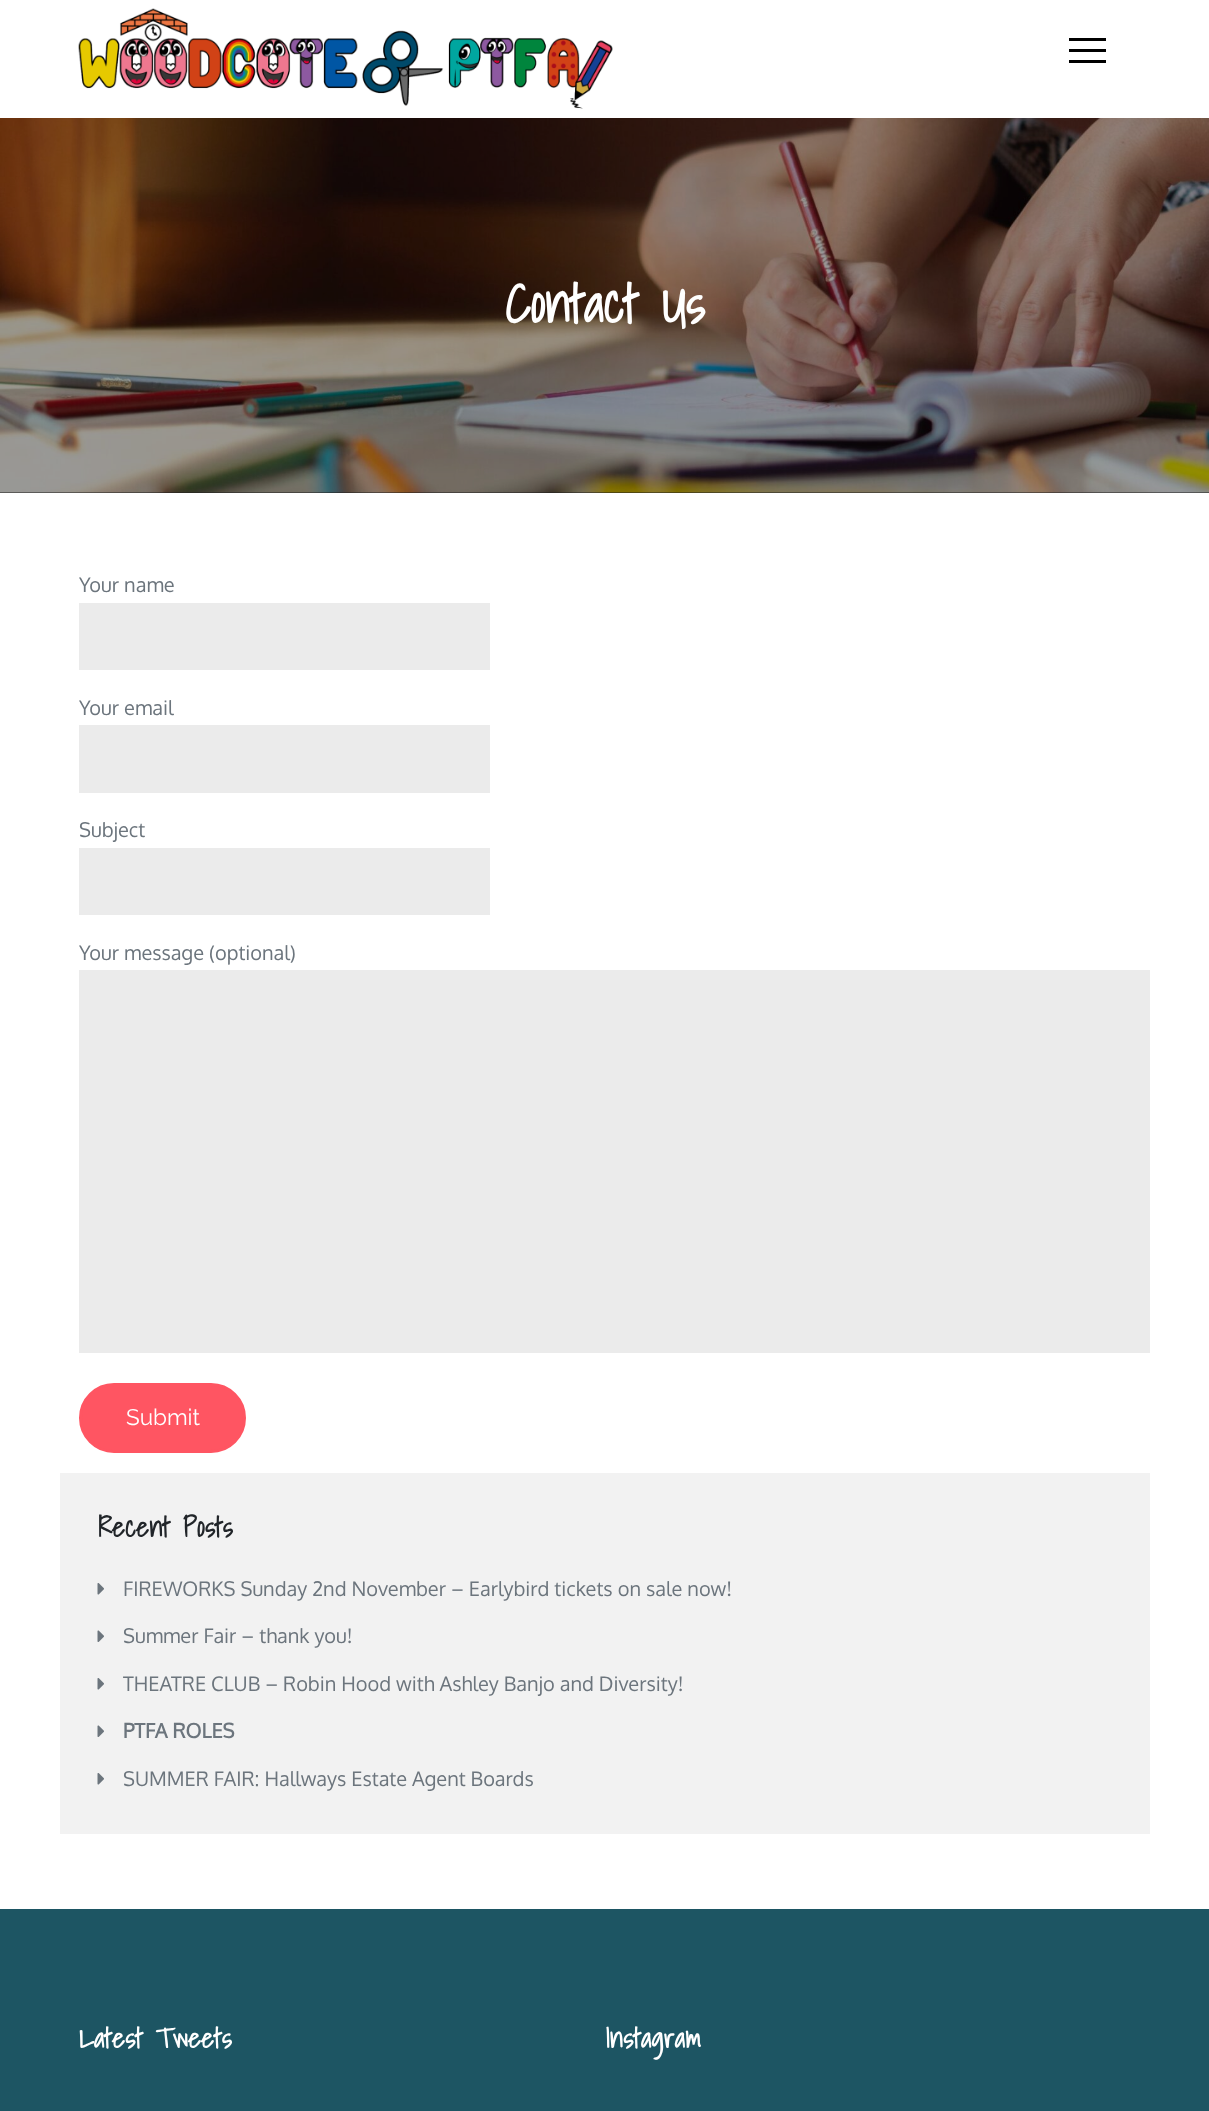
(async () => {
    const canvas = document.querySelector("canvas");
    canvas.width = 1209;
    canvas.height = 2111;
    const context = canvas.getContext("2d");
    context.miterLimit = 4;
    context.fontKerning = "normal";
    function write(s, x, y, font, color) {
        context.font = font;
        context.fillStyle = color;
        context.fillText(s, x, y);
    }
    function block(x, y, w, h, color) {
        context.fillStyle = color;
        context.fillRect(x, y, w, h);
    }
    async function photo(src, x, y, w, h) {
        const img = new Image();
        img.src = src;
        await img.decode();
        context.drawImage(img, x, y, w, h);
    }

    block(0, 0, 1209, 2111, "rgb(255, 255, 255)");
    await photo("media/1.png", 78, 8, 535, 101);
    block(1069, 38, 37, 3, "rgb(0, 0, 0)");
    block(1069, 49, 37, 3, "rgb(0, 0, 0)");
    block(1069, 60, 37, 3, "rgb(0, 0, 0)");
    block(0, 492, 1209, 1, "rgb(31, 31, 31)");
    await photo("media/2.png", 0, 118, 1209, 375);
    write("Contact Us", 505, 323, "bold 52.5px Shadows Into Light", "rgb(255, 255, 255)");
    write("Your name", 79, 592, "20px Oxygen", "rgb(108, 117, 125)");
    block(79, 603, 411, 67, "rgb(235, 235, 235)");
    write("Your email", 79, 715, "20px Oxygen", "rgb(108, 117, 125)");
    block(79, 725, 411, 68, "rgb(235, 235, 235)");
    write("Subject", 79, 837, "20px Oxygen", "rgb(108, 117, 125)");
    block(79, 848, 411, 67, "rgb(235, 235, 235)");
    write("Your message (optional)", 79, 960, "20px Oxygen", "rgb(108, 117, 125)");
    block(79, 970, 1071, 383, "rgb(235, 235, 235)");
    context.fillStyle = "rgb(255, 85, 98)";
    context.beginPath();
    context.roundRect(80.5, 1384.5, 164, 67, 33.5);
    context.fill();
    context.strokeStyle = "rgb(255, 85, 98)";
    context.lineWidth = 3;
    context.stroke();
    write("Submit", 126, 1425, "22.5px Raleway", "rgb(255, 255, 255)");
    block(60, 1473, 1090, 361, "rgb(242, 242, 242)");
    context.letterSpacing = "0.25px";
    write("Recent Posts", 98, 1537, "bold 27.5px Shadows Into Light", "rgb(33, 37, 41)");
    await photo("media/3.png", 97, 1583, 7, 12);
    context.letterSpacing = "0px";
    write("FIREWORKS Sunday 2nd November – Earlybird tickets on sale now!", 123, 1596, "20px Oxygen", "rgb(108, 117, 125)");
    await photo("media/4.png", 97, 1630, 7, 12);
    write("Summer Fair – thank you!", 123, 1643, "20px Oxygen", "rgb(108, 117, 125)");
    await photo("media/3.png", 97, 1678, 7, 12);
    write("THEATRE CLUB – Robin Hood with Ashley Banjo and Diversity!", 123, 1691, "20px Oxygen", "rgb(108, 117, 125)");
    await photo("media/4.png", 97, 1725, 7, 12);
    write("PTFA ROLES", 123, 1738, "bold 20px Oxygen", "rgb(108, 117, 125)");
    await photo("media/3.png", 97, 1773, 7, 12);
    write("SUMMER FAIR: Hallways Estate Agent Boards", 123, 1786, "20px Oxygen", "rgb(108, 117, 125)");
    block(0, 1909, 1209, 202, "rgb(29, 85, 99)");
    context.letterSpacing = "0.25px";
    write("Latest Tweets", 79, 2048, "bold 27.5px Shadows Into Light", "rgb(255, 255, 255)");
    write("Instagram", 605, 2048, "bold 27.5px Shadows Into Light", "rgb(255, 255, 255)");
})();
